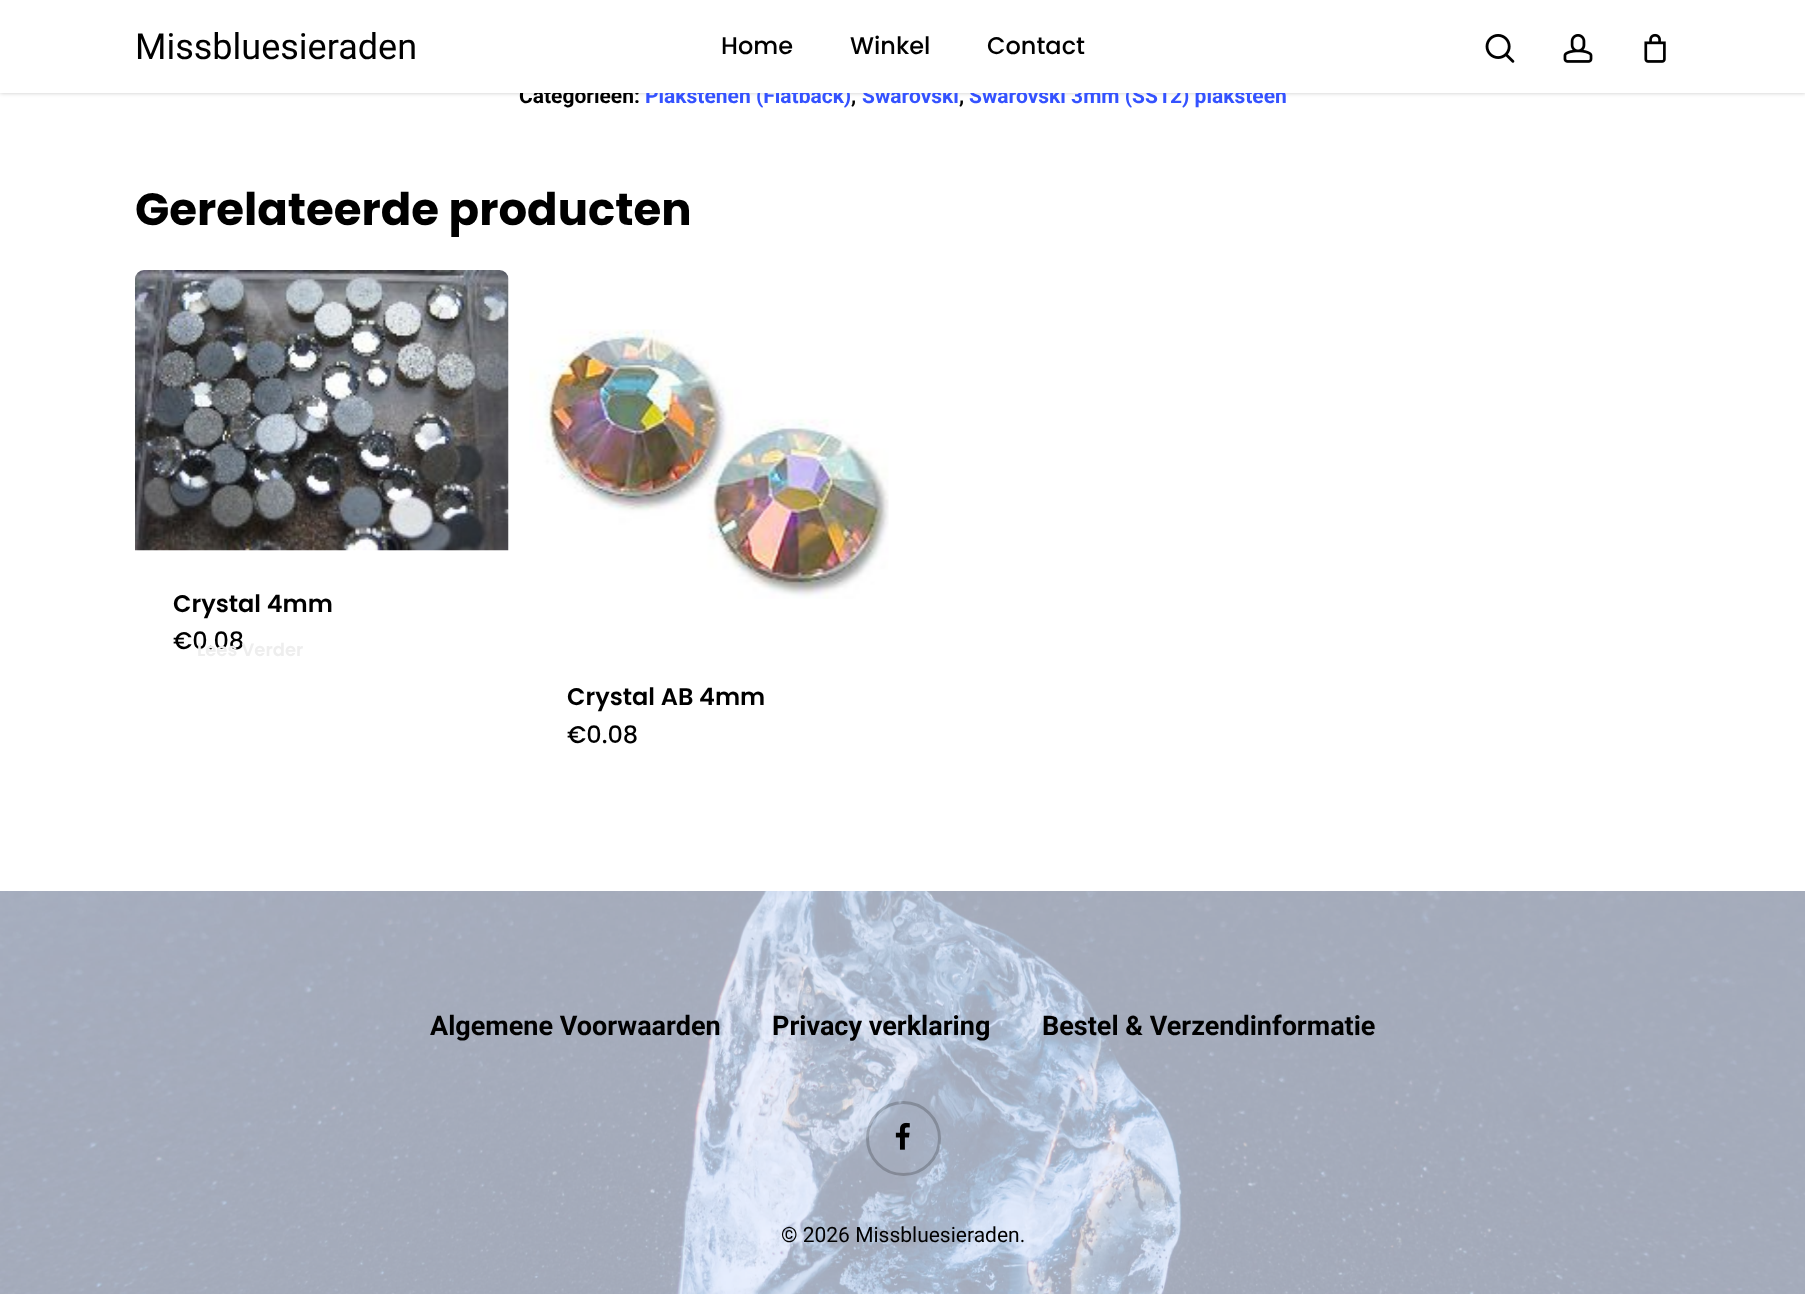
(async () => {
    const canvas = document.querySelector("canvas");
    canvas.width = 1805;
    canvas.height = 1294;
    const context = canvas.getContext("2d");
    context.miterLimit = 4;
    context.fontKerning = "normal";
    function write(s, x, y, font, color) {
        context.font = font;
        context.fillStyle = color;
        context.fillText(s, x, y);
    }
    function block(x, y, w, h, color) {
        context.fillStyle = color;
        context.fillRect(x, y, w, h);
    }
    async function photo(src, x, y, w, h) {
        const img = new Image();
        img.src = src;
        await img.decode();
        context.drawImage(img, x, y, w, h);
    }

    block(0, 0, 1805, 1294, "rgb(255, 255, 255)");
    context.fillStyle = "rgba(0, 0, 0, 0.22)";
    context.filter = "blur(2px)";
    context.beginPath();
    context.rect(0, -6, 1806, 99);
    context.fill();
    context.filter = "none";
    write("Categorieën:", 519, 103, "bold 21px Roboto", "rgb(0, 0, 0)");
    write("Plakstenen (Flatback)", 645, 103, "bold 21px Roboto", "rgb(52, 82, 255)");
    write("Swarovski", 862, 103, "bold 21px Roboto", "rgb(52, 82, 255)");
    write("Swarovski 3mm (SS12) plaksteen", 969, 103, "bold 21px Roboto", "rgb(52, 82, 255)");
    block(0, 0, 1805, 93, "rgb(255, 255, 255)");
    write("Missbluesieraden", 135, 59, "36px Roboto", "rgb(0, 0, 0)");
    write("Home", 721, 54, "500 24px Poppins", "rgb(0, 0, 0)");
    write("Winkel", 850, 54, "500 24px Poppins", "rgb(0, 0, 0)");
    write("Contact", 987, 54, "500 24px Poppins", "rgb(0, 0, 0)");
    await photo("media/1.png", 1485, 34, 30, 29);
    await photo("media/2.png", 1563, 34, 30, 29);
    await photo("media/3.png", 1644, 33, 22, 30);
    write(",", 851, 103, "bold 21px Roboto", "rgb(0, 0, 0)");
    write(",", 959, 103, "bold 21px Roboto", "rgb(0, 0, 0)");
    write("Gerelateerde producten", 135, 225, "bold 45px Poppins", "rgb(0, 0, 0)");
    await photo("media/4.png", 135, 270, 374, 281);
    write("Crystal 4mm", 173, 612, "600 24px Poppins", "rgb(0, 0, 0)");
    write("€0.08", 173, 649, "500 24px Poppins", "rgb(0, 0, 0)");
    write("Lees Verder", 197, 656, "600 18px Poppins", "rgb(238, 238, 238)");
    await photo("media/5.png", 529, 329, 360, 270);
    write("Crystal AB 4mm", 567, 705, "600 24px Poppins", "rgb(0, 0, 0)");
    write("€0.08", 567, 743, "500 24px Poppins", "rgb(0, 0, 0)");
    await photo("media/6.png", 0, 891, 1805, 403);
    write("Algemene Voorwaarden", 430, 1035, "bold 27px Roboto", "rgb(0, 0, 0)");
    write("Privacy verklaring", 772, 1035, "bold 27px Roboto", "rgb(0, 0, 0)");
    write("Bestel & Verzendinformatie", 1042, 1035, "bold 27px Roboto", "rgb(0, 0, 0)");
    await photo("media/7.png", 895, 1122, 15, 28);
    context.beginPath();
    context.arc(903.5, 1138.5, 36, 0, Math.PI * 2);
    context.strokeStyle = "rgba(0, 0, 0, 0.2)";
    context.lineWidth = 3;
    context.stroke();
    write("© 2026 Missbluesieraden.", 781, 1242, "21px Roboto", "rgb(0, 0, 0)");
})();
